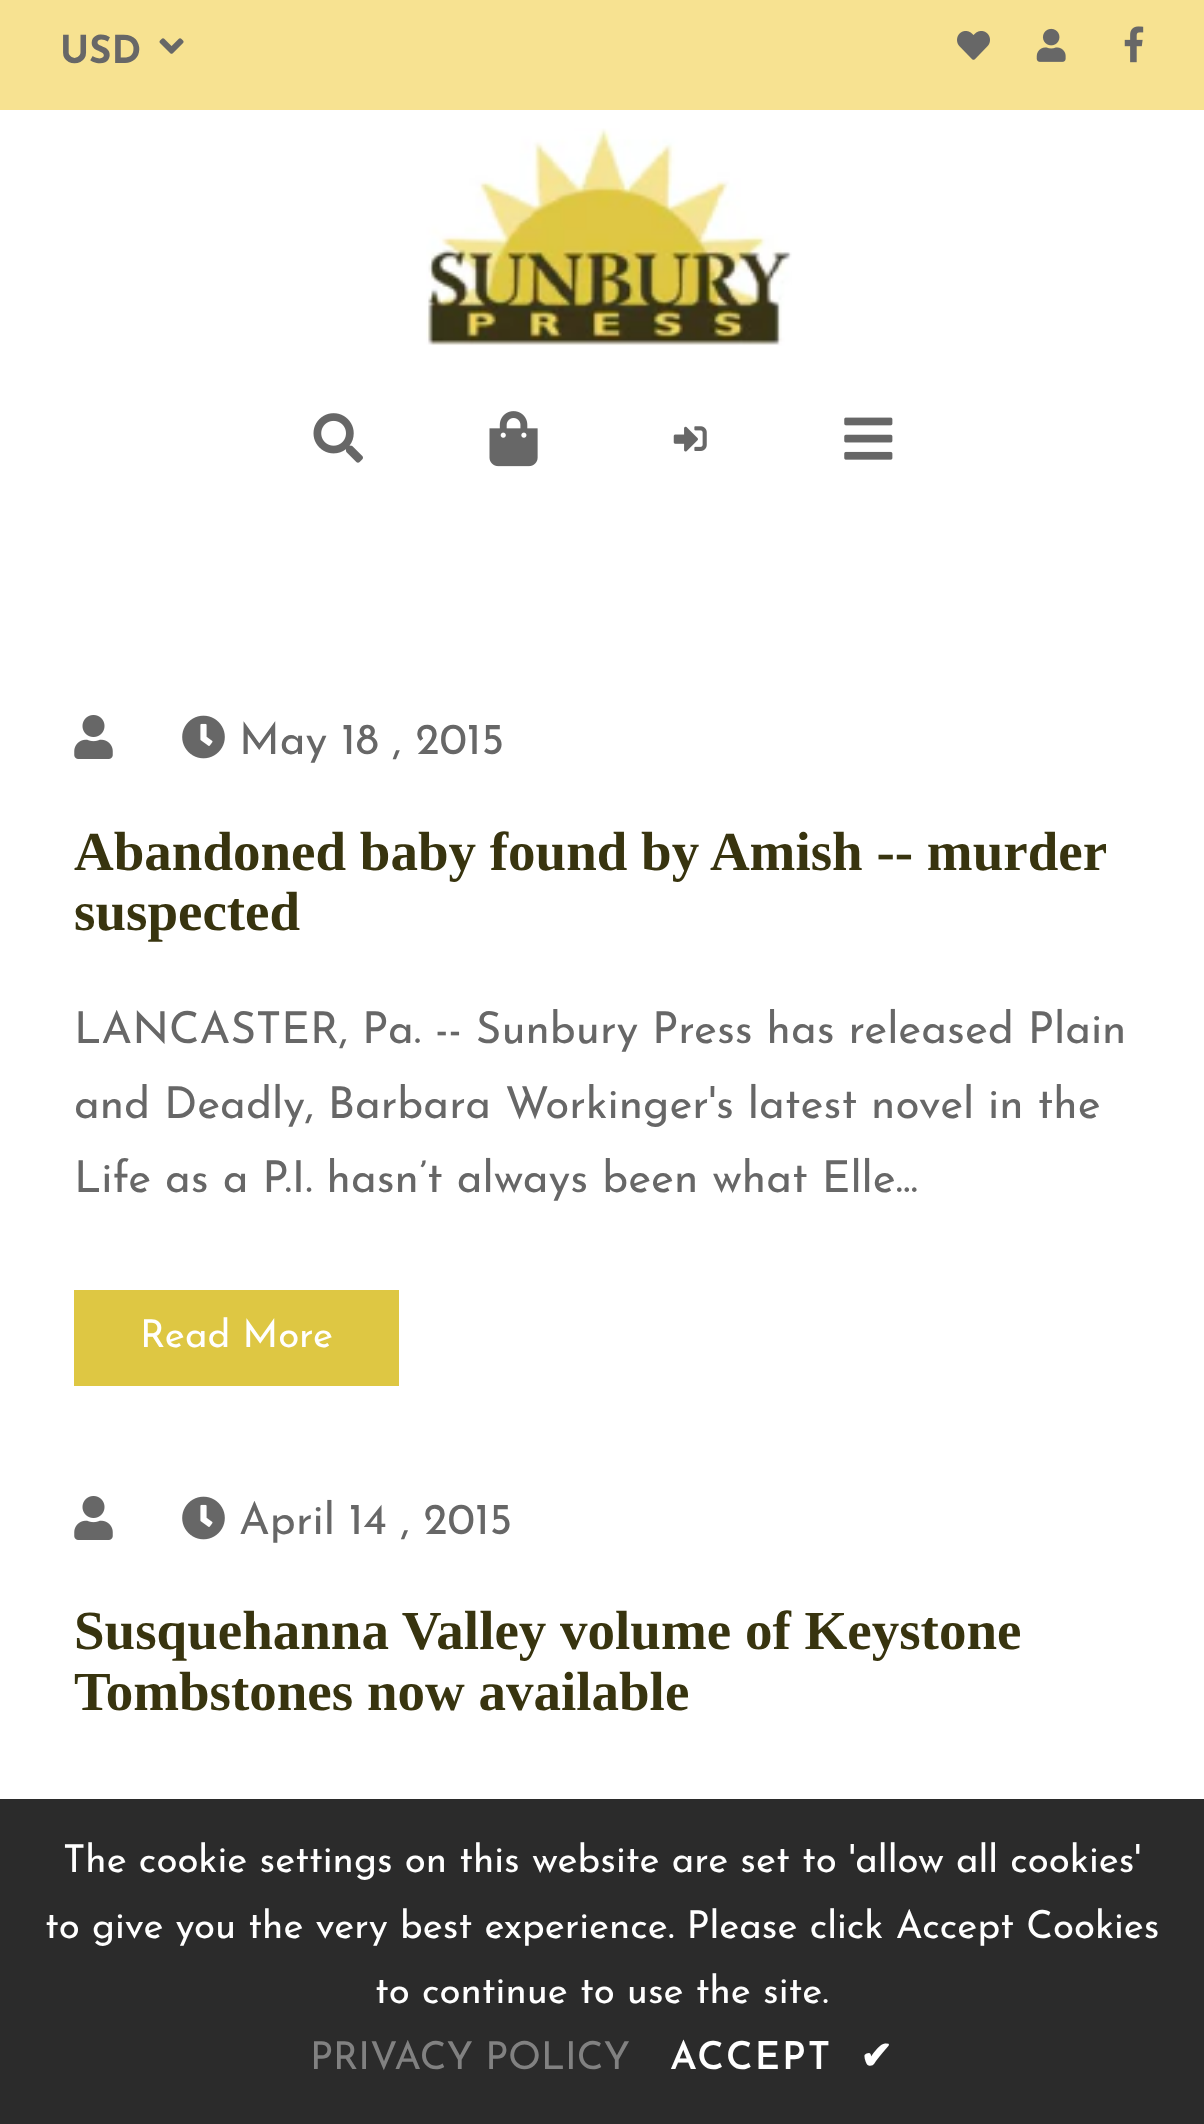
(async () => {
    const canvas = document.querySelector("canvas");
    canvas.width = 1204;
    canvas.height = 2124;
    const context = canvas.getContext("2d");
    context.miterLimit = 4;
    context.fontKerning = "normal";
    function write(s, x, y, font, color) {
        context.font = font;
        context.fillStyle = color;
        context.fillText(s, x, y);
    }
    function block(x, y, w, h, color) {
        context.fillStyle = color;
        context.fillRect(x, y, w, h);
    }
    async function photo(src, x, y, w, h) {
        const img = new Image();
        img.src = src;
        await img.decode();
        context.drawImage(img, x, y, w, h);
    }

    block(0, 0, 1204, 2124, "rgb(255, 255, 255)");
    block(0, 0, 1204, 110, "rgb(247, 226, 145)");
    write("USD", 60, 63, "bold 38.5px Josefin Sans", "rgb(103, 103, 103)");
    await photo("media/1.png", 159, 38, 25, 16);
    await photo("media/2.png", 957, 31, 33, 29);
    await photo("media/3.png", 1036, 28, 30, 34);
    await photo("media/4.png", 1124, 26, 20, 37);
    await photo("media/5.png", 426, 128, 366, 218);
    await photo("media/6.png", 313, 413, 50, 50);
    await photo("media/7.png", 489, 411, 49, 56);
    await photo("media/8.png", 673, 426, 34, 26);
    await photo("media/9.png", 844, 417, 49, 43);
    await photo("media/10.png", 74, 715, 39, 44);
    await photo("media/11.png", 182, 715, 43, 44);
    write("May 18 , 2015", 239, 754, "44px Josefin Sans", "rgb(103, 103, 103)");
    write("Abandoned baby found by Amish -- murder", 74, 870, "bold 55px Liberation Serif", "rgb(56, 52, 15)");
    write("suspected", 74, 930, "bold 55px Liberation Serif", "rgb(56, 52, 15)");
    write("LANCASTER, Pa. -- Sunbury Press has released Plain", 74, 1043, "44px Josefin Sans", "rgb(103, 103, 103)");
    write("and Deadly, Barbara Workinger's latest novel in the", 74, 1118, "44px Josefin Sans", "rgb(103, 103, 103)");
    write("Life as a P.I. hasn’t always been what Elle...", 74, 1192, "44px Josefin Sans", "rgb(103, 103, 103)");
    block(74, 1290, 325, 96, "rgb(222, 199, 67)");
    write("Read More", 140, 1347, "38.5px Josefin Sans", "rgb(255, 255, 255)");
    await photo("media/10.png", 74, 1496, 39, 44);
    await photo("media/11.png", 182, 1496, 43, 44);
    write("April 14 , 2015", 239, 1534, "44px Josefin Sans", "rgb(103, 103, 103)");
    write("Susquehanna Valley volume of Keystone", 74, 1649, "bold 55px Liberation Serif", "rgb(56, 52, 15)");
    write("Tombstones now available", 74, 1710, "bold 55px Liberation Serif", "rgb(56, 52, 15)");
    block(0, 1799, 1204, 325, "rgba(20, 20, 20, 0.9)");
    write("The cookie settings on this website are set to 'allow all cookies'", 63, 1872, "38.5px Josefin Sans", "rgb(255, 255, 255)");
    write("to give you the very best experience. Please click Accept Cookies", 45, 1938, "38.5px Josefin Sans", "rgb(255, 255, 255)");
    write("to continue to use the site.", 375, 2003, "38.5px Josefin Sans", "rgb(255, 255, 255)");
    write("PRIVACY POLICY", 310, 2069, "38.5px Josefin Sans", "rgb(129, 129, 129)");
    context.letterSpacing = "2px";
    write("ACCEPT", 670, 2069, "600 38.5px Josefin Sans", "rgb(255, 255, 255)");
    write("✔", 860, 2069, "bold 38.5px DejaVu Sans", "rgb(255, 255, 255)");
})();
